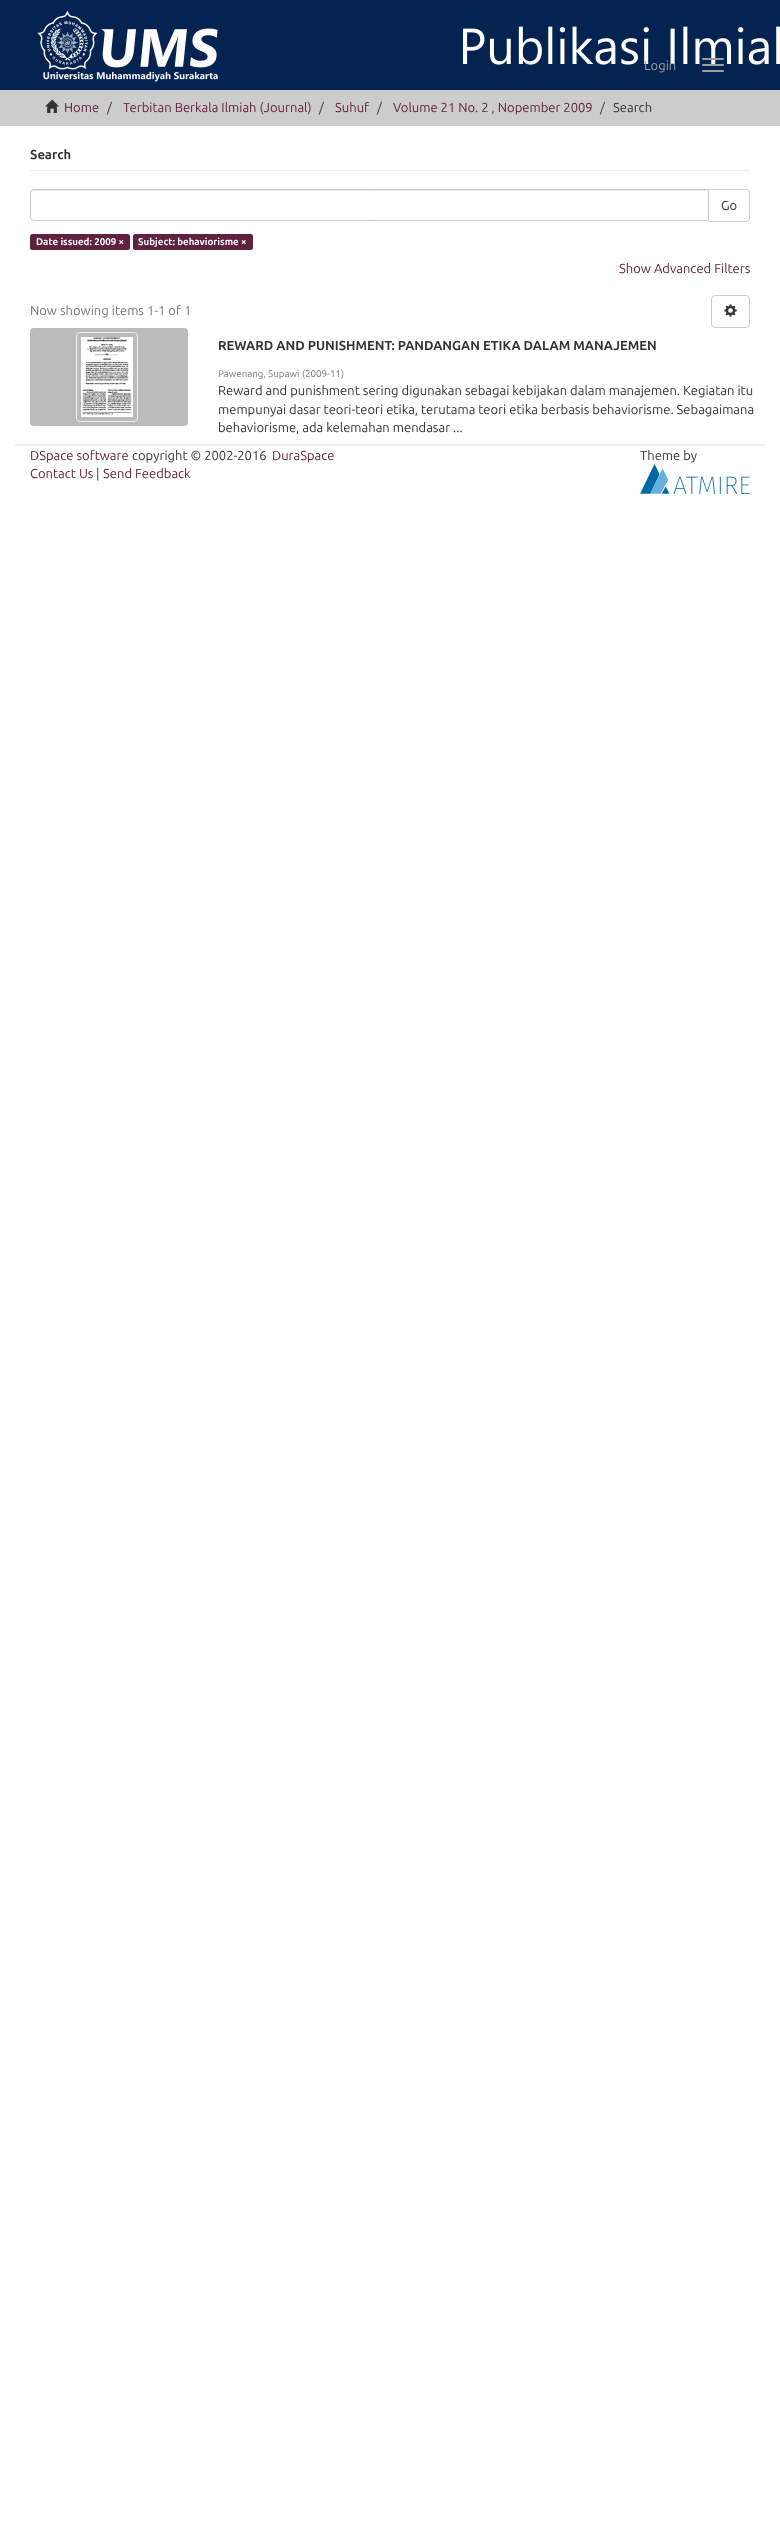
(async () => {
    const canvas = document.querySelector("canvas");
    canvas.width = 780;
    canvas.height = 2533;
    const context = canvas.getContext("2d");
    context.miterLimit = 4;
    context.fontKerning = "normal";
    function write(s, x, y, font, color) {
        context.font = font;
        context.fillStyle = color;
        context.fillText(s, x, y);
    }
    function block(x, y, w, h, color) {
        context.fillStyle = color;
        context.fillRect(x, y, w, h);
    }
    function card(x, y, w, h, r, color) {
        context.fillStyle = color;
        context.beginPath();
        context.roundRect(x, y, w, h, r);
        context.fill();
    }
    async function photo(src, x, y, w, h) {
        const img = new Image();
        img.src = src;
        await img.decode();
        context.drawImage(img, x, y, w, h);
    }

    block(0, 0, 780, 2533, "rgb(255, 255, 255)");
    block(0, 0, 780, 90, "rgb(4, 35, 81)");
    await photo("media/1.png", 37, 10, 743, 72);
    write("Login", 644, 70, "13px Ubuntu", "rgb(157, 157, 157)");
    card(702, 58, 22, 2, 1, "rgb(157, 157, 157)");
    card(702, 64, 22, 2, 1, "rgb(157, 157, 157)");
    card(702, 70, 22, 2, 1, "rgb(157, 157, 157)");
    block(0, 90, 780, 36, "rgb(204, 204, 204)");
    await photo("media/2.png", 45, 99, 14, 14);
    write("Home", 64, 112, "13px Ubuntu", "rgb(96, 34, 59)");
    write("/", 107, 112, "13px Ubuntu", "rgb(51, 51, 51)");
    write("Terbitan Berkala Ilmiah (Journal)", 123, 112, "13px Ubuntu", "rgb(96, 34, 59)");
    write("/", 319, 112, "13px Ubuntu", "rgb(51, 51, 51)");
    write("Suhuf", 335, 112, "13px Ubuntu", "rgb(96, 34, 59)");
    write("/", 377, 112, "13px Ubuntu", "rgb(51, 51, 51)");
    write("Volume 21 No. 2 , Nopember 2009", 393, 112, "13px Ubuntu", "rgb(96, 34, 59)");
    write("/", 600, 112, "13px Ubuntu", "rgb(51, 51, 51)");
    write("Search", 613, 112, "13px Ubuntu", "rgb(51, 51, 51)");
    block(30, 170, 720, 1, "rgb(238, 238, 238)");
    write("Search", 30, 159, "bold 13px Ubuntu", "rgb(51, 51, 51)");
    context.beginPath();
    context.roundRect(708.5, 189.5, 41, 32, [0, 3.5, 3.5, 0]);
    context.strokeStyle = "rgb(204, 204, 204)";
    context.stroke();
    context.fillStyle = "rgb(255, 255, 255)";
    context.beginPath();
    context.roundRect(30, 189, 679, 32, [4, 0, 0, 4]);
    context.fill();
    context.fillStyle = "rgb(236, 236, 236)";
    context.beginPath();
    context.moveTo(34, 191);
    context.lineTo(708, 191);
    context.lineTo(708, 190);
    context.lineTo(34, 190);
    context.bezierCurveTo(32, 190, 31, 191, 31, 193);
    context.lineTo(31, 194);
    context.bezierCurveTo(31, 192, 32, 191, 34, 191);
    context.closePath();
    context.fill();
    context.beginPath();
    context.roundRect(30.5, 189.5, 678, 31, [3.5, 0, 0, 3.5]);
    context.stroke();
    write("Go", 721, 210, "13px Ubuntu", "rgb(51, 51, 51)");
    card(30, 234, 100, 16, 2.5, "rgb(96, 34, 59)");
    write("Date issued: 2009 ×", 36, 245, "bold 9.75px Ubuntu", "rgb(255, 255, 255)");
    card(133, 234, 120, 16, 2.5, "rgb(96, 34, 59)");
    write("Subject: behaviorisme ×", 138, 245, "bold 9.75px Ubuntu", "rgb(255, 255, 255)");
    write("Show Advanced Filters", 619, 273, "13px Ubuntu", "rgb(96, 34, 59)");
    write("Now showing items 1-1 of 1", 30, 315, "13px Ubuntu", "rgb(119, 119, 119)");
    context.beginPath();
    context.roundRect(711.5, 295.5, 38, 32, 3.5);
    context.stroke();
    await photo("media/3.png", 724, 304, 13, 13);
    card(30, 328, 158, 98, 4, "rgb(187, 187, 187)");
    context.beginPath();
    context.roundRect(76.5, 332.5, 61, 89, 3.5);
    context.strokeStyle = "rgb(238, 238, 238)";
    context.stroke();
    await photo("media/4.png", 81, 337, 52, 80);
    write("REWARD AND PUNISHMENT: PANDANGAN ETIKA DALAM MANAJEMEN", 218, 350, "bold 13px Ubuntu", "rgb(51, 51, 51)");
    write("Pawenang, Supawi", 218, 377, "9.75px Ubuntu", "rgb(119, 119, 119)");
    write("(2009-11)", 302, 377, "9.75px Ubuntu", "rgb(119, 119, 119)");
    write("Reward and punishment sering digunakan sebagai kebijakan dalam manajemen. Kegiatan itu", 218, 395, "13px Ubuntu", "rgb(51, 51, 51)");
    write("mempunyai dasar teori-teori etika, terutama teori etika berbasis behaviorisme. Sebagaimana", 218, 414, "13px Ubuntu", "rgb(51, 51, 51)");
    write("behaviorisme, ada kelemahan mendasar ...", 218, 432, "13px Ubuntu", "rgb(51, 51, 51)");
    block(15, 444, 750, 2, "rgb(238, 238, 238)");
    write("DSpace software", 30, 460, "13px Ubuntu", "rgb(96, 34, 59)");
    write("copyright © 2002-2016", 132, 460, "13px Ubuntu", "rgb(51, 51, 51)");
    write("DuraSpace", 272, 460, "13px Ubuntu", "rgb(96, 34, 59)");
    write("Contact Us", 30, 478, "13px Ubuntu", "rgb(96, 34, 59)");
    write("|", 96, 478, "13px Ubuntu", "rgb(51, 51, 51)");
    write("Send Feedback", 103, 478, "13px Ubuntu", "rgb(96, 34, 59)");
    write("Theme by", 640, 460, "13px Ubuntu", "rgb(51, 51, 51)");
    await photo("media/5.png", 640, 464, 110, 30);
})();
